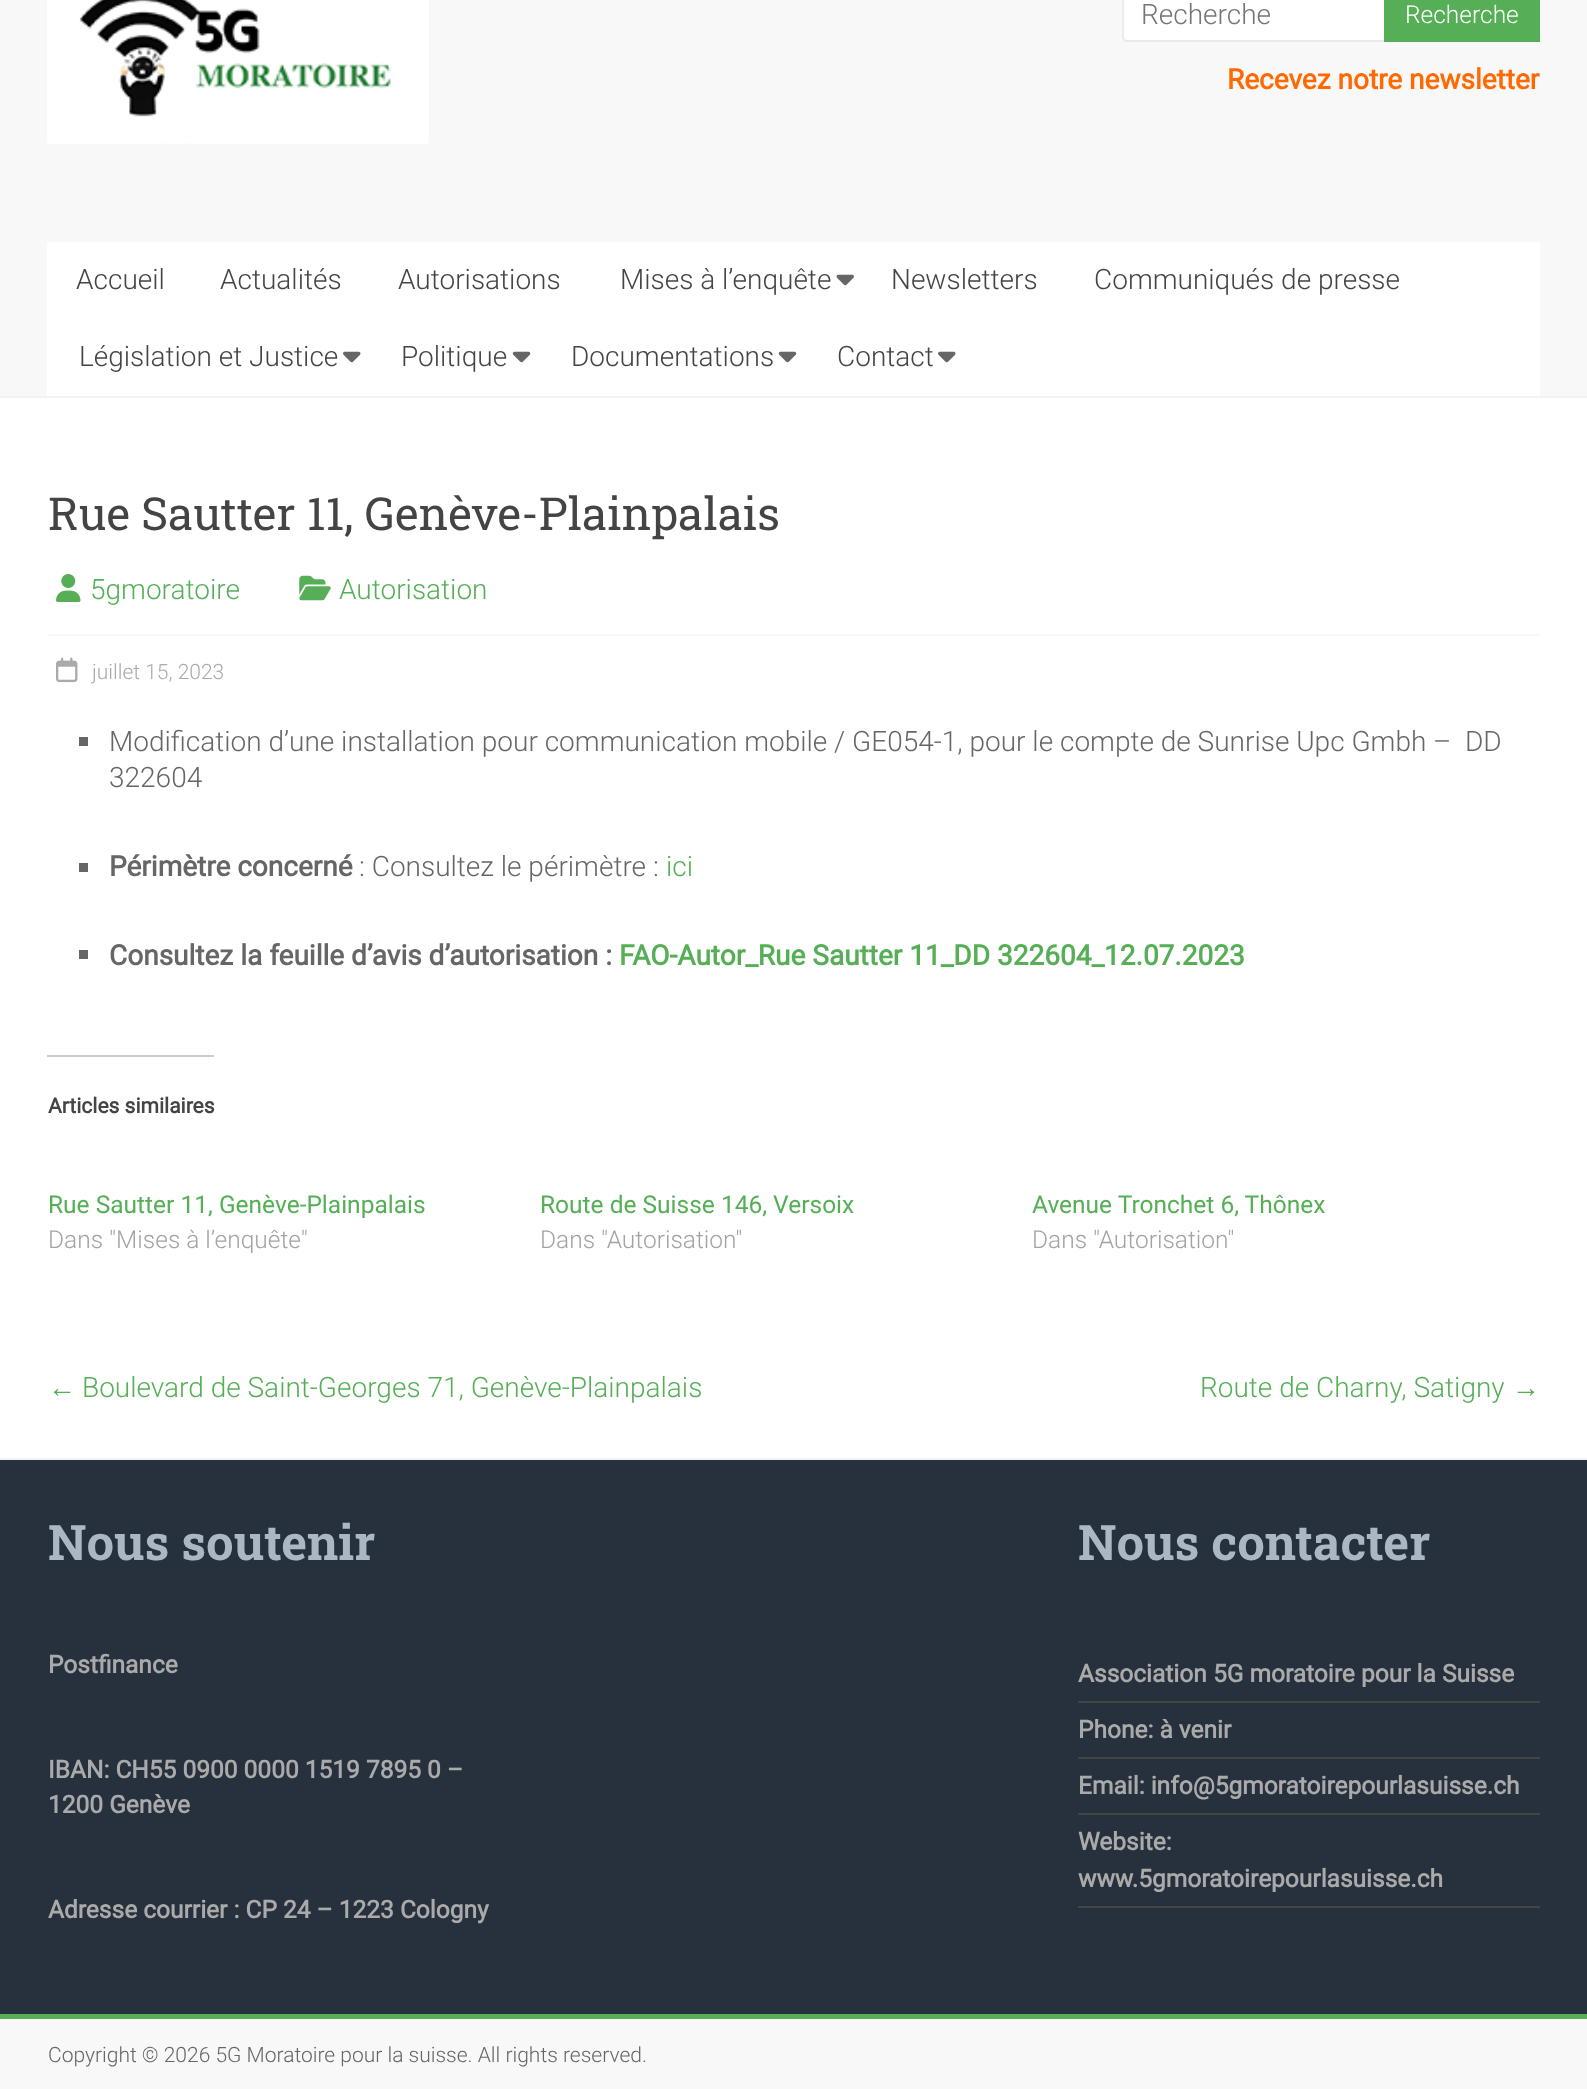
(async () => {
    const canvas = document.querySelector("canvas");
    canvas.width = 1587;
    canvas.height = 2089;
    const context = canvas.getContext("2d");
    context.miterLimit = 4;
    context.fontKerning = "normal";
    function write(s, x, y, font, color) {
        context.font = font;
        context.fillStyle = color;
        context.fillText(s, x, y);
    }
    function block(x, y, w, h, color) {
        context.fillStyle = color;
        context.fillRect(x, y, w, h);
    }
    async function photo(src, x, y, w, h) {
        const img = new Image();
        img.src = src;
        await img.decode();
        context.drawImage(img, x, y, w, h);
    }

    block(0, 0, 1587, 2089, "rgb(255, 255, 255)");
    block(0, 0, 1587, 396, "rgb(248, 248, 248)");
    block(0, 396, 1587, 2, "rgb(242, 242, 242)");
    await photo("media/1.png", 47, 0, 382, 144);
    context.fillStyle = "rgb(255, 255, 255)";
    context.beginPath();
    context.moveTo(1127, -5);
    context.lineTo(1384, -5);
    context.lineTo(1384, 42);
    context.lineTo(1127, 42);
    context.bezierCurveTo(1124, 42, 1122, 40, 1122, 37);
    context.lineTo(1122, 0);
    context.bezierCurveTo(1122, -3, 1124, -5, 1127, -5);
    context.closePath();
    context.fill();
    context.fillStyle = "rgb(234, 234, 234)";
    context.beginPath();
    context.moveTo(1127, -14);
    context.lineTo(1384, -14);
    context.lineTo(1384, 42);
    context.lineTo(1127, 42);
    context.bezierCurveTo(1124, 42, 1122, 40, 1122, 37);
    context.lineTo(1122, -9);
    context.bezierCurveTo(1122, -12, 1124, -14, 1127, -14);
    context.closePath();
    context.moveTo(1127, -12);
    context.lineTo(1384, -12);
    context.lineTo(1384, 40);
    context.lineTo(1127, 40);
    context.bezierCurveTo(1125, 40, 1124, 39, 1124, 37);
    context.lineTo(1124, -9);
    context.bezierCurveTo(1124, -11, 1125, -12, 1127, -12);
    context.closePath();
    context.fill("evenodd");
    write("Recherche", 1141, 24, "300 28px Roboto", "rgb(117, 117, 117)");
    block(1384, 0, 156, 42, "rgb(86, 175, 87)");
    write("Recherche", 1405, 23, "300 24.5px Roboto", "rgb(255, 255, 255)");
    write("Recevez notre newsletter", 1227, 89, "bold 28px Roboto", "rgb(255, 105, 0)");
    block(47, 242, 1493, 154, "rgb(255, 255, 255)");
    write("Accueil", 76, 289, "300 28px Roboto", "rgb(68, 68, 68)");
    write("Actualités", 220, 289, "300 28px Roboto", "rgb(68, 68, 68)");
    write("Autorisations", 398, 289, "300 28px Roboto", "rgb(68, 68, 68)");
    write("Mises à l’enquête", 620, 289, "300 28px Roboto", "rgb(68, 68, 68)");
    await photo("media/2.png", 836, 274, 18, 12);
    write("Newsletters", 891, 289, "300 28px Roboto", "rgb(68, 68, 68)");
    write("Communiqués de presse", 1094, 289, "300 28px Roboto", "rgb(68, 68, 68)");
    write("Législation et Justice", 79, 366, "300 28px Roboto", "rgb(68, 68, 68)");
    await photo("media/3.png", 343, 351, 18, 12);
    write("Politique", 401, 366, "300 28px Roboto", "rgb(68, 68, 68)");
    await photo("media/4.png", 512, 351, 19, 12);
    write("Documentations", 571, 366, "300 28px Roboto", "rgb(68, 68, 68)");
    await photo("media/4.png", 778, 351, 19, 12);
    write("Contact", 837, 366, "300 28px Roboto", "rgb(68, 68, 68)");
    await photo("media/3.png", 938, 351, 18, 12);
    write("Rue Sautter 11, Genève-Plainpalais", 48, 530, "45.5px Roboto Slab", "rgb(68, 68, 68)");
    await photo("media/5.png", 56, 574, 25, 28);
    write("5gmoratoire", 90, 599, "300 28px Roboto", "rgb(86, 175, 87)");
    await photo("media/6.png", 299, 575, 32, 26);
    write("Autorisation", 339, 599, "300 28px Roboto", "rgb(86, 175, 87)");
    block(47, 634, 1493, 2, "rgb(248, 248, 248)");
    await photo("media/7.png", 56, 657, 22, 26);
    write("juillet 15, 2023", 92, 679, "300 21px Roboto", "rgb(170, 170, 170)");
    block(79, 737, 9, 9, "rgb(102, 102, 102)");
    write("Modification d’une installation pour communication mobile / GE054-1, pour le compte de Sunrise Upc Gmbh –", 109, 751, "300 28px Roboto", "rgb(102, 102, 102)");
    write("DD", 1465, 751, "300 28px Roboto", "rgb(102, 102, 102)");
    write("322604", 109, 787, "300 28px Roboto", "rgb(102, 102, 102)");
    block(79, 863, 9, 9, "rgb(102, 102, 102)");
    write("Périmètre concerné", 109, 876, "bold 28px Roboto", "rgb(102, 102, 102)");
    write(": Consultez le périmètre :", 359, 876, "300 28px Roboto", "rgb(102, 102, 102)");
    write("ici", 666, 876, "300 28px Roboto", "rgb(86, 175, 87)");
    block(79, 950, 9, 9, "rgb(102, 102, 102)");
    write("Consultez la feuille d’avis d’autorisation :", 109, 965, "bold 28px Roboto", "rgb(102, 102, 102)");
    write("FAO-Autor_Rue Sautter 11_DD 322604_12.07.2023", 619, 965, "bold 28px Roboto", "rgb(86, 175, 87)");
    block(47, 1055, 167, 2, "rgb(204, 204, 204)");
    write("Articles similaires", 48, 1113, "bold 21px Roboto", "rgb(68, 68, 68)");
    write("Rue Sautter 11, Genève-Plainpalais", 48, 1213, "24.5px Roboto", "rgb(86, 175, 87)");
    write("Dans \"Mises à l’enquête\"", 48, 1248, "300 24.5px Roboto", "rgb(163, 163, 163)");
    write("Route de Suisse 146, Versoix", 540, 1213, "24.5px Roboto", "rgb(86, 175, 87)");
    write("Dans \"Autorisation\"", 540, 1248, "300 24.5px Roboto", "rgb(163, 163, 163)");
    write("Avenue Tronchet 6, Thônex", 1032, 1213, "24.5px Roboto", "rgb(86, 175, 87)");
    write("Dans \"Autorisation\"", 1032, 1248, "300 24.5px Roboto", "rgb(163, 163, 163)");
    write("←", 48, 1397, "28px Liberation Sans", "rgb(86, 175, 87)");
    write("Boulevard de Saint-Georges 71, Genève-Plainpalais", 82, 1397, "300 28px Roboto", "rgb(86, 175, 87)");
    write("Route de Charny, Satigny", 1200, 1397, "300 28px Roboto", "rgb(86, 175, 87)");
    write("→", 1512, 1397, "28px Liberation Sans", "rgb(86, 175, 87)");
    block(0, 1460, 1587, 554, "rgb(39, 49, 61)");
    block(0, 1458, 1587, 2, "rgb(242, 242, 242)");
    write("Nous soutenir", 48, 1560, "bold 49px Roboto Slab", "rgb(171, 184, 195)");
    write("Postfinance", 48, 1673, "bold 24.5px Roboto", "rgb(170, 170, 170)");
    write("IBAN: CH55 0900 0000 1519 7895 0 –", 48, 1778, "bold 24.5px Roboto", "rgb(170, 170, 170)");
    write("1200 Genève", 48, 1813, "bold 24.5px Roboto", "rgb(170, 170, 170)");
    write("Adresse courrier : CP 24 – 1223 Cologny", 48, 1918, "bold 24.5px Roboto", "rgb(170, 170, 170)");
    write("Nous contacter", 1078, 1560, "bold 49px Roboto Slab", "rgb(171, 184, 195)");
    block(1078, 1701, 462, 2, "rgb(68, 68, 68)");
    write("Association 5G moratoire pour la Suisse", 1078, 1682, "bold 24.5px Roboto", "rgb(170, 170, 170)");
    block(1078, 1757, 462, 2, "rgb(68, 68, 68)");
    write("Phone: à venir", 1078, 1738, "bold 24.5px Roboto", "rgb(170, 170, 170)");
    block(1078, 1813, 462, 2, "rgb(68, 68, 68)");
    write("Email: info@5gmoratoirepourlasuisse.ch", 1078, 1794, "bold 24.5px Roboto", "rgb(170, 170, 170)");
    block(1078, 1906, 462, 2, "rgb(68, 68, 68)");
    write("Website:", 1078, 1850, "bold 24.5px Roboto", "rgb(170, 170, 170)");
    write("www.5gmoratoirepourlasuisse.ch", 1078, 1887, "bold 24.5px Roboto", "rgb(170, 170, 170)");
    block(0, 2019, 1587, 70, "rgb(248, 248, 248)");
    block(0, 2014, 1587, 5, "rgb(86, 175, 87)");
    write("Copyright © 2026 5G Moratoire pour la suisse. All rights reserved.", 48, 2062, "300 21px Roboto", "rgb(102, 102, 102)");
})();
